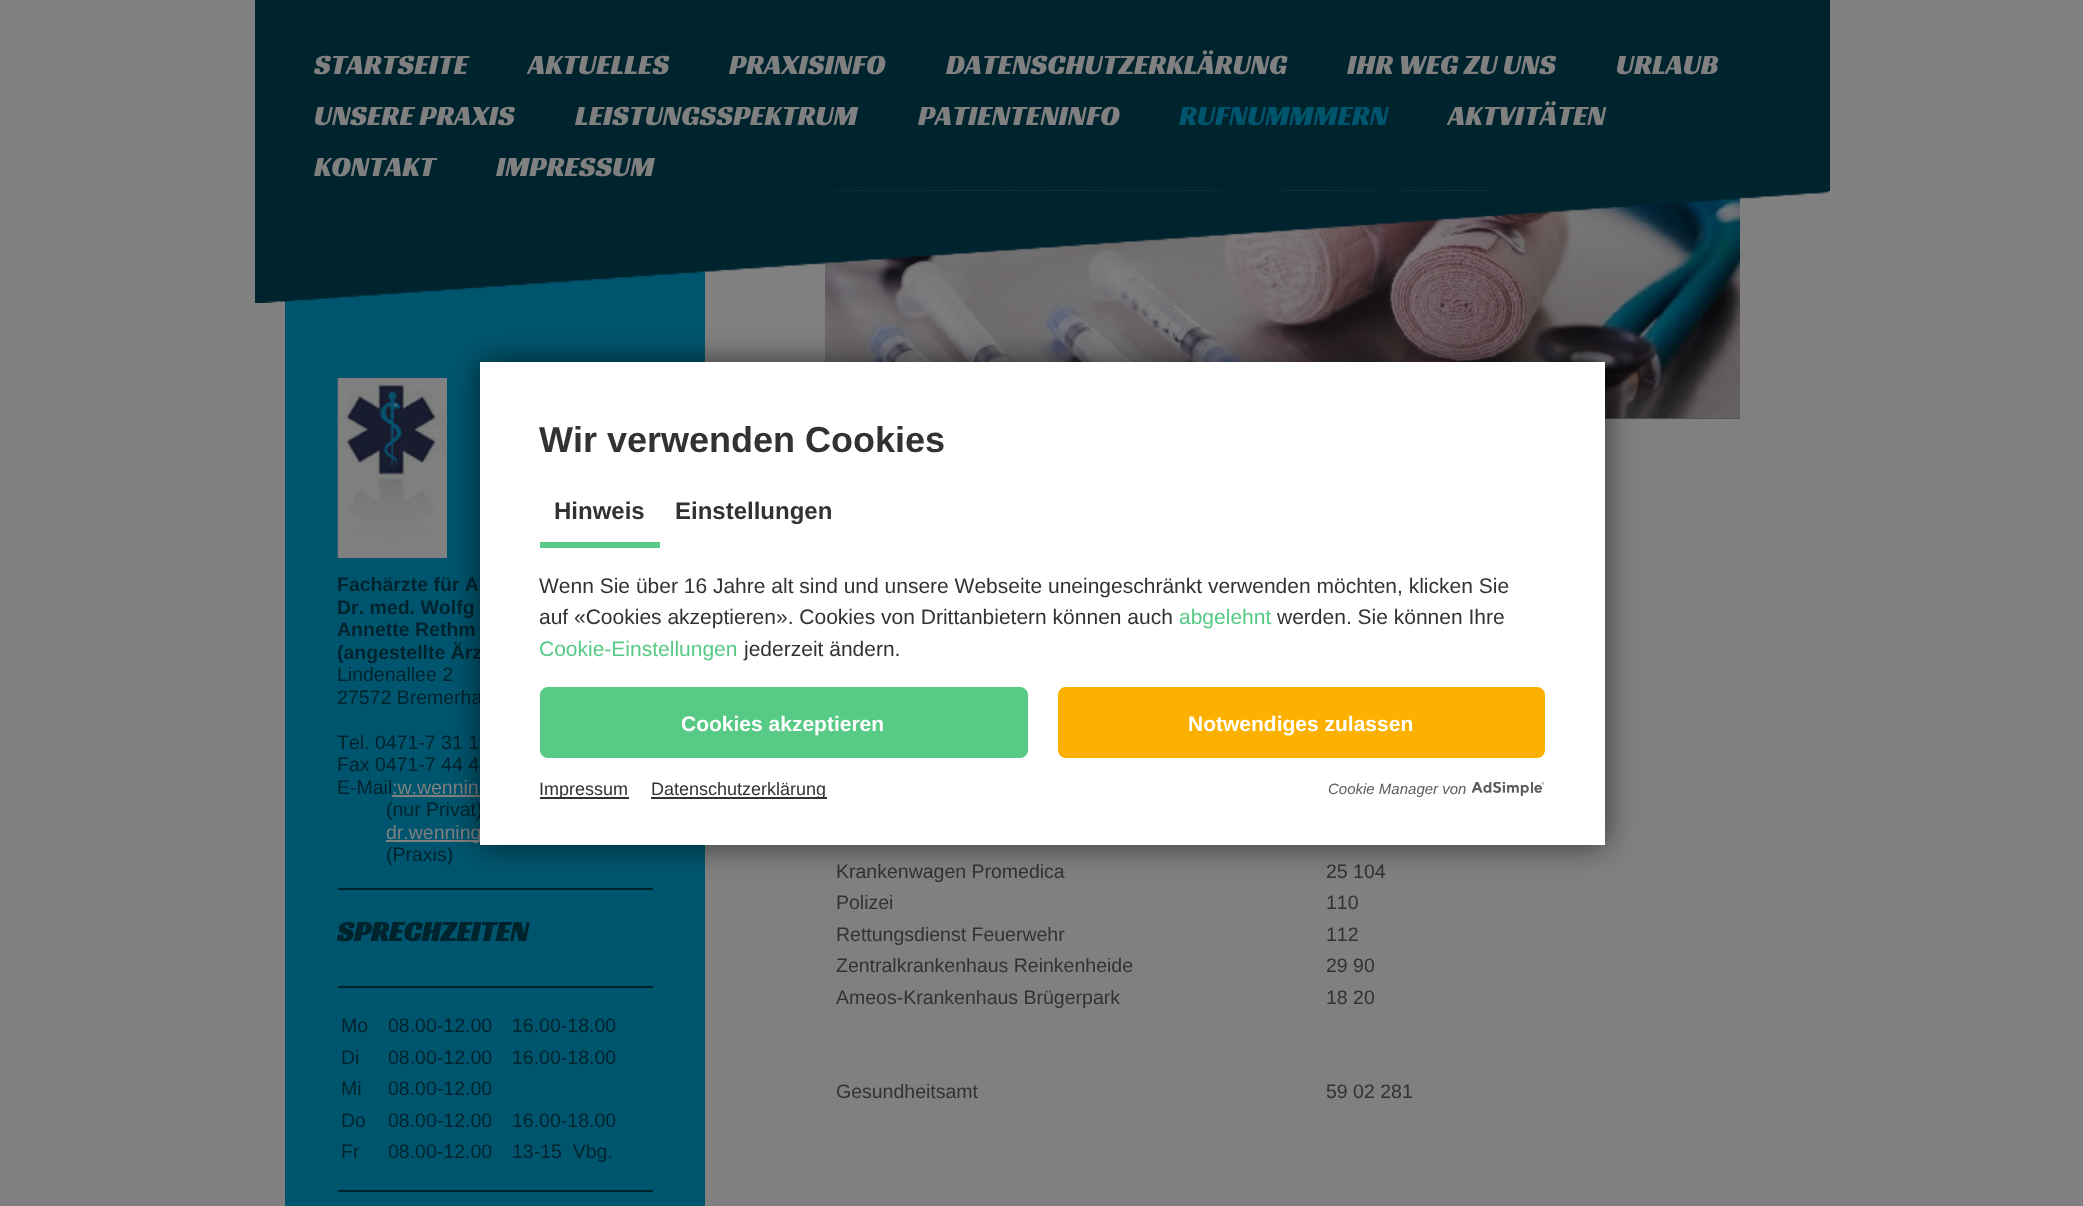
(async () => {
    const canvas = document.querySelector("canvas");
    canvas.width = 2083;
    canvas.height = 1206;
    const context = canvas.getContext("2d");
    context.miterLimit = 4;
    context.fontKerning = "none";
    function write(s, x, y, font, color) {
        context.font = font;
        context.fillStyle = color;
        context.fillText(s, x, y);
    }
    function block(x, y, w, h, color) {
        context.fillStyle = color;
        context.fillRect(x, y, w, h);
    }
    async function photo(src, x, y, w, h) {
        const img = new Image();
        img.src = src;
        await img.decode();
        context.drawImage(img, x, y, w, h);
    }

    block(0, 0, 2083, 1206, "rgb(128, 128, 128)");
    block(255, 0, 1575, 191, "rgb(0, 36, 46)");
    write("STARTSEITE", 314, 74, "28.5px Racing Sans One", "rgb(128, 128, 128)");
    write("AKTUELLES", 528, 74, "28.5px Racing Sans One", "rgb(128, 128, 128)");
    write("PRAXISINFO", 729, 74, "28.5px Racing Sans One", "rgb(128, 128, 128)");
    write("DATENSCHUTZERKLÄRUNG", 946, 74, "28.5px Racing Sans One", "rgb(128, 128, 128)");
    write("IHR WEG ZU UNS", 1347, 74, "28.5px Racing Sans One", "rgb(128, 128, 128)");
    write("URLAUB", 1616, 74, "28.5px Racing Sans One", "rgb(128, 128, 128)");
    write("UNSERE PRAXIS", 314, 125, "28.5px Racing Sans One", "rgb(128, 128, 128)");
    write("LEISTUNGSSPEKTRUM", 575, 125, "28.5px Racing Sans One", "rgb(128, 128, 128)");
    write("PATIENTENINFO", 918, 125, "28.5px Racing Sans One", "rgb(128, 128, 128)");
    write("RUFNUMMMERN", 1179, 125, "28.5px Racing Sans One", "rgb(0, 85, 110)");
    write("AKTVITÄTEN", 1448, 125, "28.5px Racing Sans One", "rgb(128, 128, 128)");
    write("KONTAKT", 314, 176, "28.5px Racing Sans One", "rgb(128, 128, 128)");
    write("IMPRESSUM", 496, 176, "28.5px Racing Sans One", "rgb(128, 128, 128)");
    block(285, 271, 420, 935, "rgb(0, 85, 110)");
    block(1605, 418, 135, 1, "rgb(80, 80, 80)");
    await photo("media/3.png", 825, 190, 915, 229);
    await photo("media/1.png", 255, 190, 1574, 113);
    await photo("media/2.png", 337, 378, 110, 180);
    write("Fachärzte für A", 337, 591, "bold 19.5px Liberation Sans", "rgb(0, 36, 46)");
    write("Dr. med. Wolfg", 337, 614, "bold 19.5px Liberation Sans", "rgb(0, 36, 46)");
    write("Annette Rethm", 337, 636, "bold 19.5px Liberation Sans", "rgb(0, 36, 46)");
    write("(angestellte Ärz", 337, 659, "bold 19.5px Liberation Sans", "rgb(0, 36, 46)");
    write("Lindenallee 2", 337, 681, "19.5px Liberation Sans", "rgb(0, 36, 46)");
    write("27572 Bremerha", 337, 704, "19.5px Liberation Sans", "rgb(0, 36, 46)");
    write("Tel. 0471-7 31 1", 337, 749, "19.5px Liberation Sans", "rgb(0, 36, 46)");
    write("Fax 0471-7 44 4", 337, 771, "19.5px Liberation Sans", "rgb(0, 36, 46)");
    write("E-Mail", 337, 794, "19.5px Liberation Sans", "rgb(0, 36, 46)");
    write(":w.wennin", 392, 794, "19.5px Liberation Sans", "rgb(128, 128, 128)");
    block(392, 795, 88, 2, "rgb(128, 128, 128)");
    write("(nur Privat)", 386, 816, "19.5px Liberation Sans", "rgb(0, 36, 46)");
    block(386, 840, 94, 2, "rgb(128, 128, 128)");
    write("dr.wenning", 386, 839, "19.5px Liberation Sans", "rgb(128, 128, 128)");
    write("(Praxis)", 386, 861, "19.5px Liberation Sans", "rgb(0, 36, 46)");
    block(338, 888, 315, 2, "rgb(0, 36, 46)");
    write("SPRECHZEITEN", 337, 941, "bold 28.5px Racing Sans One", "rgb(0, 36, 46)");
    block(338, 986, 315, 2, "rgb(0, 36, 46)");
    write("Mo", 341, 1032, "19.5px Liberation Sans", "rgb(0, 36, 46)");
    write("08.00-12.00", 388, 1032, "19.5px Liberation Sans", "rgb(0, 36, 46)");
    write("16.00-18.00", 512, 1032, "19.5px Liberation Sans", "rgb(0, 36, 46)");
    write("Di", 341, 1064, "19.5px Liberation Sans", "rgb(0, 36, 46)");
    write("08.00-12.00 ", 388, 1064, "19.5px Liberation Sans", "rgb(0, 36, 46)");
    write("16.00-18.00", 512, 1064, "19.5px Liberation Sans", "rgb(0, 36, 46)");
    write("Mi", 341, 1095, "19.5px Liberation Sans", "rgb(0, 36, 46)");
    write("08.00-12.00 ", 388, 1095, "19.5px Liberation Sans", "rgb(0, 36, 46)");
    write("Do", 341, 1127, "19.5px Liberation Sans", "rgb(0, 36, 46)");
    write("08.00-12.00 ", 388, 1127, "19.5px Liberation Sans", "rgb(0, 36, 46)");
    write("16.00-18.00", 512, 1127, "19.5px Liberation Sans", "rgb(0, 36, 46)");
    write("Fr", 341, 1158, "19.5px Liberation Sans", "rgb(0, 36, 46)");
    write("08.00-12.00", 388, 1158, "19.5px Liberation Sans", "rgb(0, 36, 46)");
    write("13-15  Vbg.", 512, 1158, "19.5px Liberation Sans", "rgb(0, 36, 46)");
    block(338, 1190, 315, 2, "rgb(0, 36, 46)");
    write("Krankenwagen Promedica", 836, 878, "19.5px Liberation Sans", "rgb(50, 50, 50)");
    write("25 104", 1326, 878, "19.5px Liberation Sans", "rgb(50, 50, 50)");
    write("Polizei", 836, 909, "19.5px Liberation Sans", "rgb(50, 50, 50)");
    write("110", 1326, 909, "19.5px Liberation Sans", "rgb(50, 50, 50)");
    write("Rettungsdienst Feuerwehr", 836, 941, "19.5px Liberation Sans", "rgb(50, 50, 50)");
    write("112", 1326, 941, "19.5px Liberation Sans", "rgb(50, 50, 50)");
    write("Zentralkrankenhaus Reinkenheide", 836, 972, "19.5px Liberation Sans", "rgb(50, 50, 50)");
    write("29 90", 1326, 972, "19.5px Liberation Sans", "rgb(50, 50, 50)");
    write("Ameos-Krankenhaus Brügerpark", 836, 1004, "19.5px Liberation Sans", "rgb(50, 50, 50)");
    write("18 20", 1326, 1004, "19.5px Liberation Sans", "rgb(50, 50, 50)");
    write("Gesundheitsamt", 836, 1098, "19.5px Liberation Sans", "rgb(50, 50, 50)");
    write("59 02 281", 1326, 1098, "19.5px Liberation Sans", "rgb(50, 50, 50)");
    context.fillStyle = "rgba(0, 0, 0, 0.6)";
    context.filter = "blur(15px)";
    context.beginPath();
    context.rect(480, 362, 1125, 483);
    context.fill();
    context.filter = "none";
    block(480, 362, 1125, 483, "rgb(255, 255, 255)");
    write("Wir verwenden Cookies", 539, 452, "bold 36px Liberation Sans", "rgb(50, 50, 50)");
    block(540, 542, 120, 6, "rgb(87, 202, 133)");
    write("Hinweis", 554, 519, "bold 24px Liberation Sans", "rgb(50, 50, 50)");
    write("Einstellungen", 675, 519, "bold 24px Liberation Sans", "rgb(50, 50, 50)");
    write("Wenn Sie über 16 Jahre alt sind und unsere Webseite uneingeschränkt verwenden möchten, klicken Sie", 539, 593, "21px Liberation Sans", "rgb(50, 50, 50)");
    write("auf «Cookies akzeptieren». Cookies von Drittanbietern können auch", 539, 624, "21px Liberation Sans", "rgb(50, 50, 50)");
    write("abgelehnt", 1179, 624, "21px Liberation Sans", "rgb(87, 202, 133)");
    write("werden. Sie können Ihre", 1277, 624, "21px Liberation Sans", "rgb(50, 50, 50)");
    write("Cookie-Einstellungen", 539, 656, "21px Liberation Sans", "rgb(87, 202, 133)");
    write("jederzeit ändern.", 744, 656, "21px Liberation Sans", "rgb(50, 50, 50)");
    context.fillStyle = "rgb(87, 202, 133)";
    context.beginPath();
    context.roundRect(541.5, 688.5, 485, 68, 6.5);
    context.fill();
    context.strokeStyle = "rgb(87, 202, 133)";
    context.lineWidth = 3;
    context.stroke();
    write("Cookies akzeptieren", 681, 731, "bold 21px Liberation Sans", "rgb(255, 255, 255)");
    context.fillStyle = "rgb(252, 177, 0)";
    context.beginPath();
    context.roundRect(1059.5, 688.5, 484, 68, 6.5);
    context.fill();
    context.strokeStyle = "rgb(252, 177, 0)";
    context.stroke();
    write("Notwendiges zulassen", 1188, 731, "bold 21px Liberation Sans", "rgb(255, 255, 255)");
    block(540, 797, 89, 2, "rgb(51, 51, 51)");
    write("Impressum", 539, 795, "18px Liberation Sans", "rgb(50, 50, 50)");
    block(651, 797, 176, 2, "rgb(51, 51, 51)");
    write("Datenschutzerklärung", 651, 795, "18px Liberation Sans", "rgb(50, 50, 50)");
    write("Cookie Manager von", 1328, 794, "italic 15px Liberation Sans", "rgb(92, 92, 92)");
    await photo("media/4.png", 1472, 782, 72, 14);
})();
